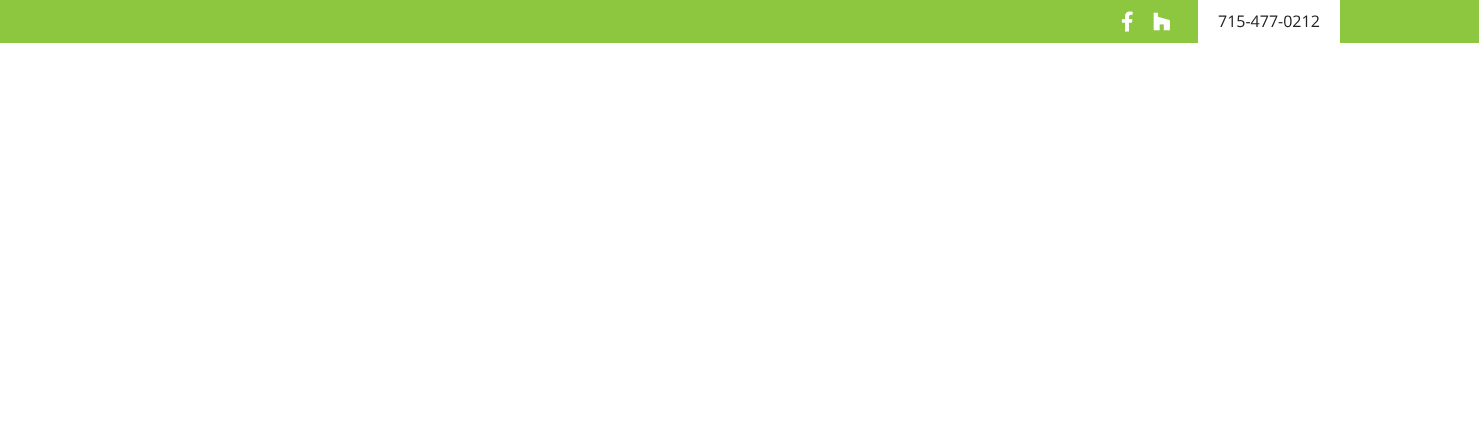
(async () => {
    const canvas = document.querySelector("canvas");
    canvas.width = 1479;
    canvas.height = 431;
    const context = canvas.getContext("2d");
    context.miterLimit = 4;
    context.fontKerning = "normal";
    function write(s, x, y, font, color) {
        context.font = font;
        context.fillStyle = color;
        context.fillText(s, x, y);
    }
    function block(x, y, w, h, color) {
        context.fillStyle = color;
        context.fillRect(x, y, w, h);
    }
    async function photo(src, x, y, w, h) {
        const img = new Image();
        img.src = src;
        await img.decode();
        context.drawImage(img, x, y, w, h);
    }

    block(0, 0, 1479, 431, "rgb(255, 255, 255)");
    block(0, 0, 1479, 43, "rgb(141, 199, 63)");
    await photo("media/1.png", 1121, 11, 12, 21);
    await photo("media/2.png", 1153, 12, 17, 19);
    block(1198, 0, 142, 43, "rgb(255, 255, 255)");
    write("715-477-0212", 1218, 27, "16px Open Sans", "rgb(34, 34, 34)");
})();
